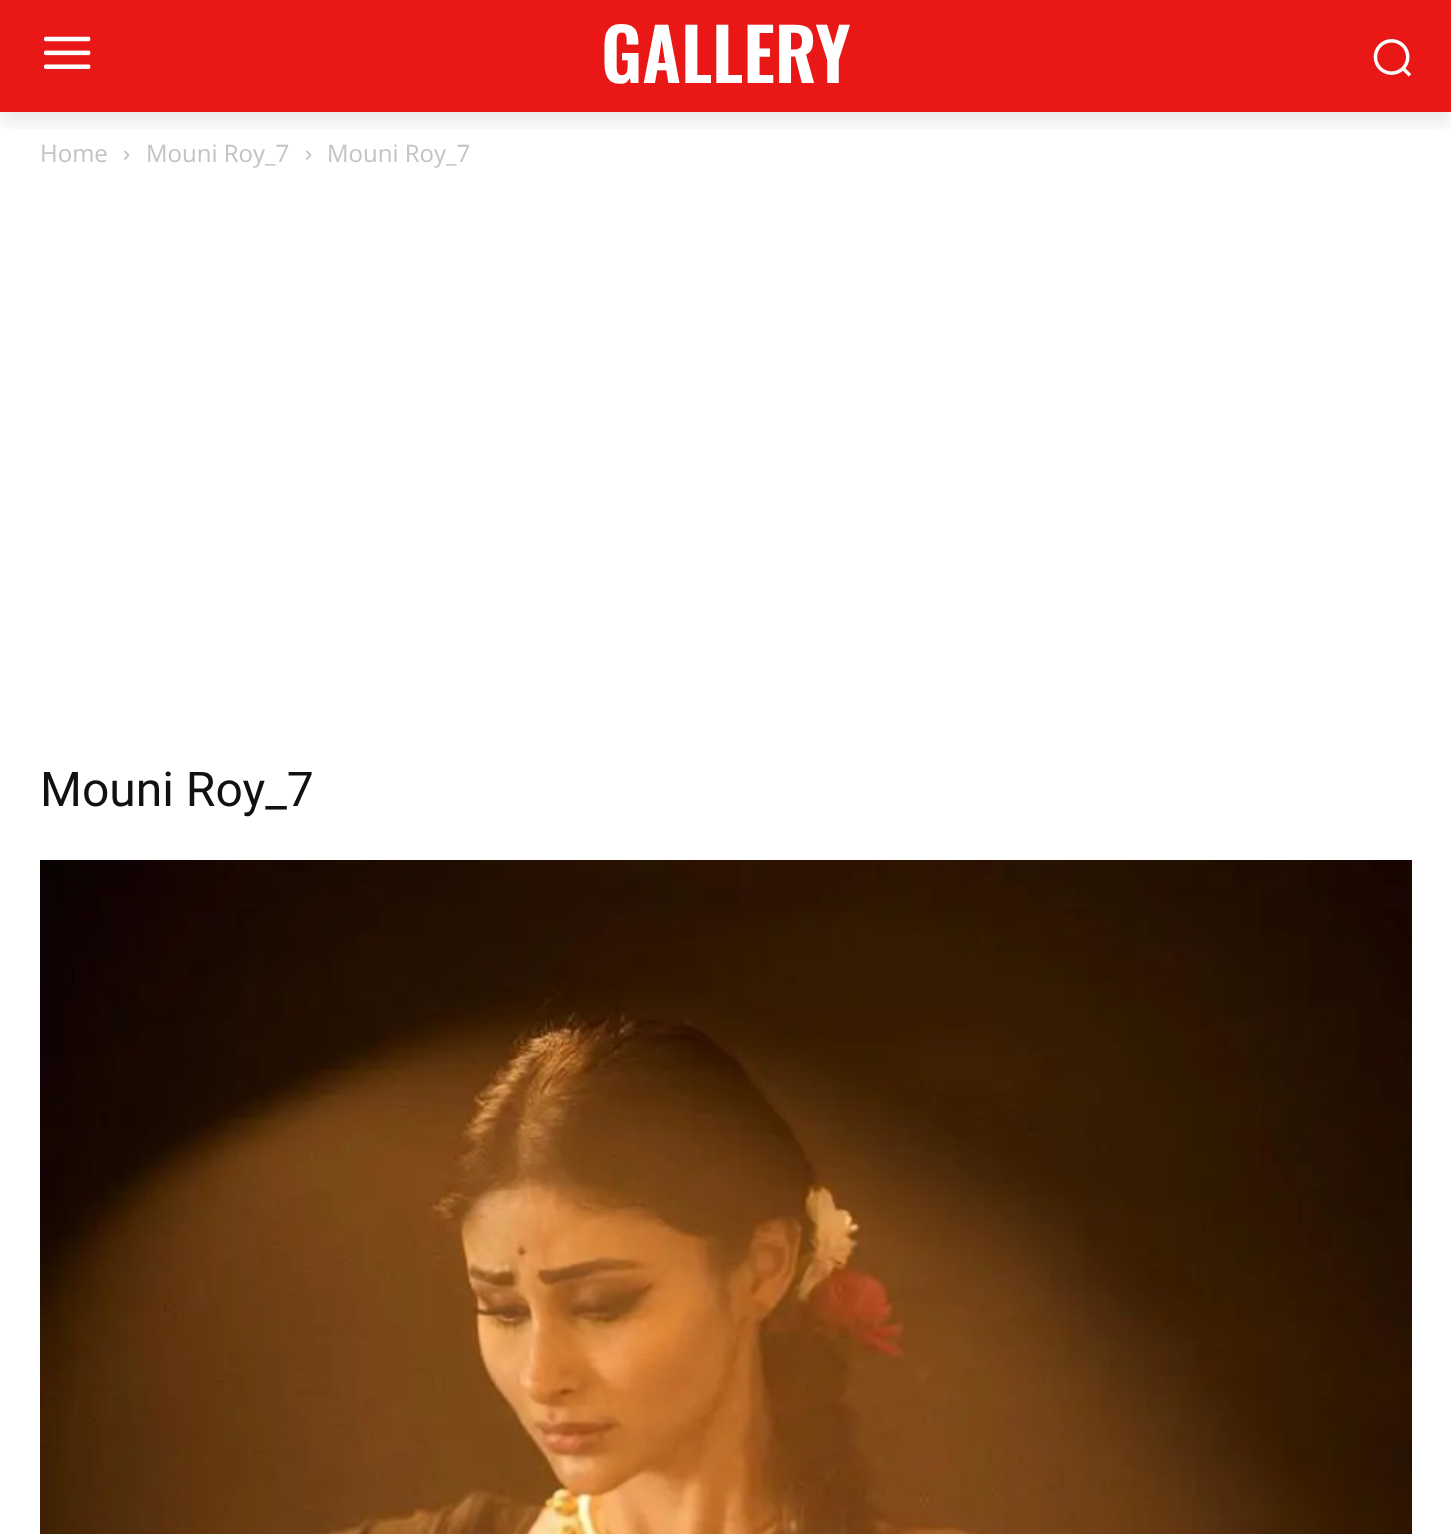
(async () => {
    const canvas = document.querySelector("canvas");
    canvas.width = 1451;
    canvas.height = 1534;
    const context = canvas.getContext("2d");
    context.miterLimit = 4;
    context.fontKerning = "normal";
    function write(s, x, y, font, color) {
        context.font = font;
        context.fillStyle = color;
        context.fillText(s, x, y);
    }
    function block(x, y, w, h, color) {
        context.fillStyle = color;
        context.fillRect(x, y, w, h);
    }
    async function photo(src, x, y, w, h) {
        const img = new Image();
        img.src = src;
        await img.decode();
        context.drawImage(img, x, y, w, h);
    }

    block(0, 0, 1451, 1534, "rgb(255, 255, 255)");
    block(0, 0, 1451, 112, "rgb(234, 23, 23)");
    await photo("media/1.png", 44, 36, 47, 33);
    await photo("media/2.png", 1373, 39, 39, 38);
    context.save();
    context.beginPath();
    context.rect(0, 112, 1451, 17);
    context.clip();
    context.fillStyle = "rgba(0, 0, 0, 0.08)";
    context.filter = "blur(8px)";
    context.beginPath();
    context.rect(0, 12, 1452, 112);
    context.fill();
    context.filter = "none";
    context.restore();
    write("GALLERY", 601, 83, "600 72px Oswald", "rgb(255, 255, 255)");
    write("Home", 40, 162, "24px Open Sans", "rgb(195, 195, 195)");
    await photo("media/3.png", 124, 150, 6, 10);
    write("Mouni Roy_7", 146, 162, "24px Open Sans", "rgb(195, 195, 195)");
    await photo("media/3.png", 306, 150, 6, 10);
    write("Mouni Roy_7", 327, 162, "24px Open Sans", "rgb(195, 195, 195)");
    write("Mouni Roy_7", 40, 806, "48px Roboto", "rgb(17, 17, 17)");
    await photo("media/4.png", 40, 860, 1372, 674);
})();
